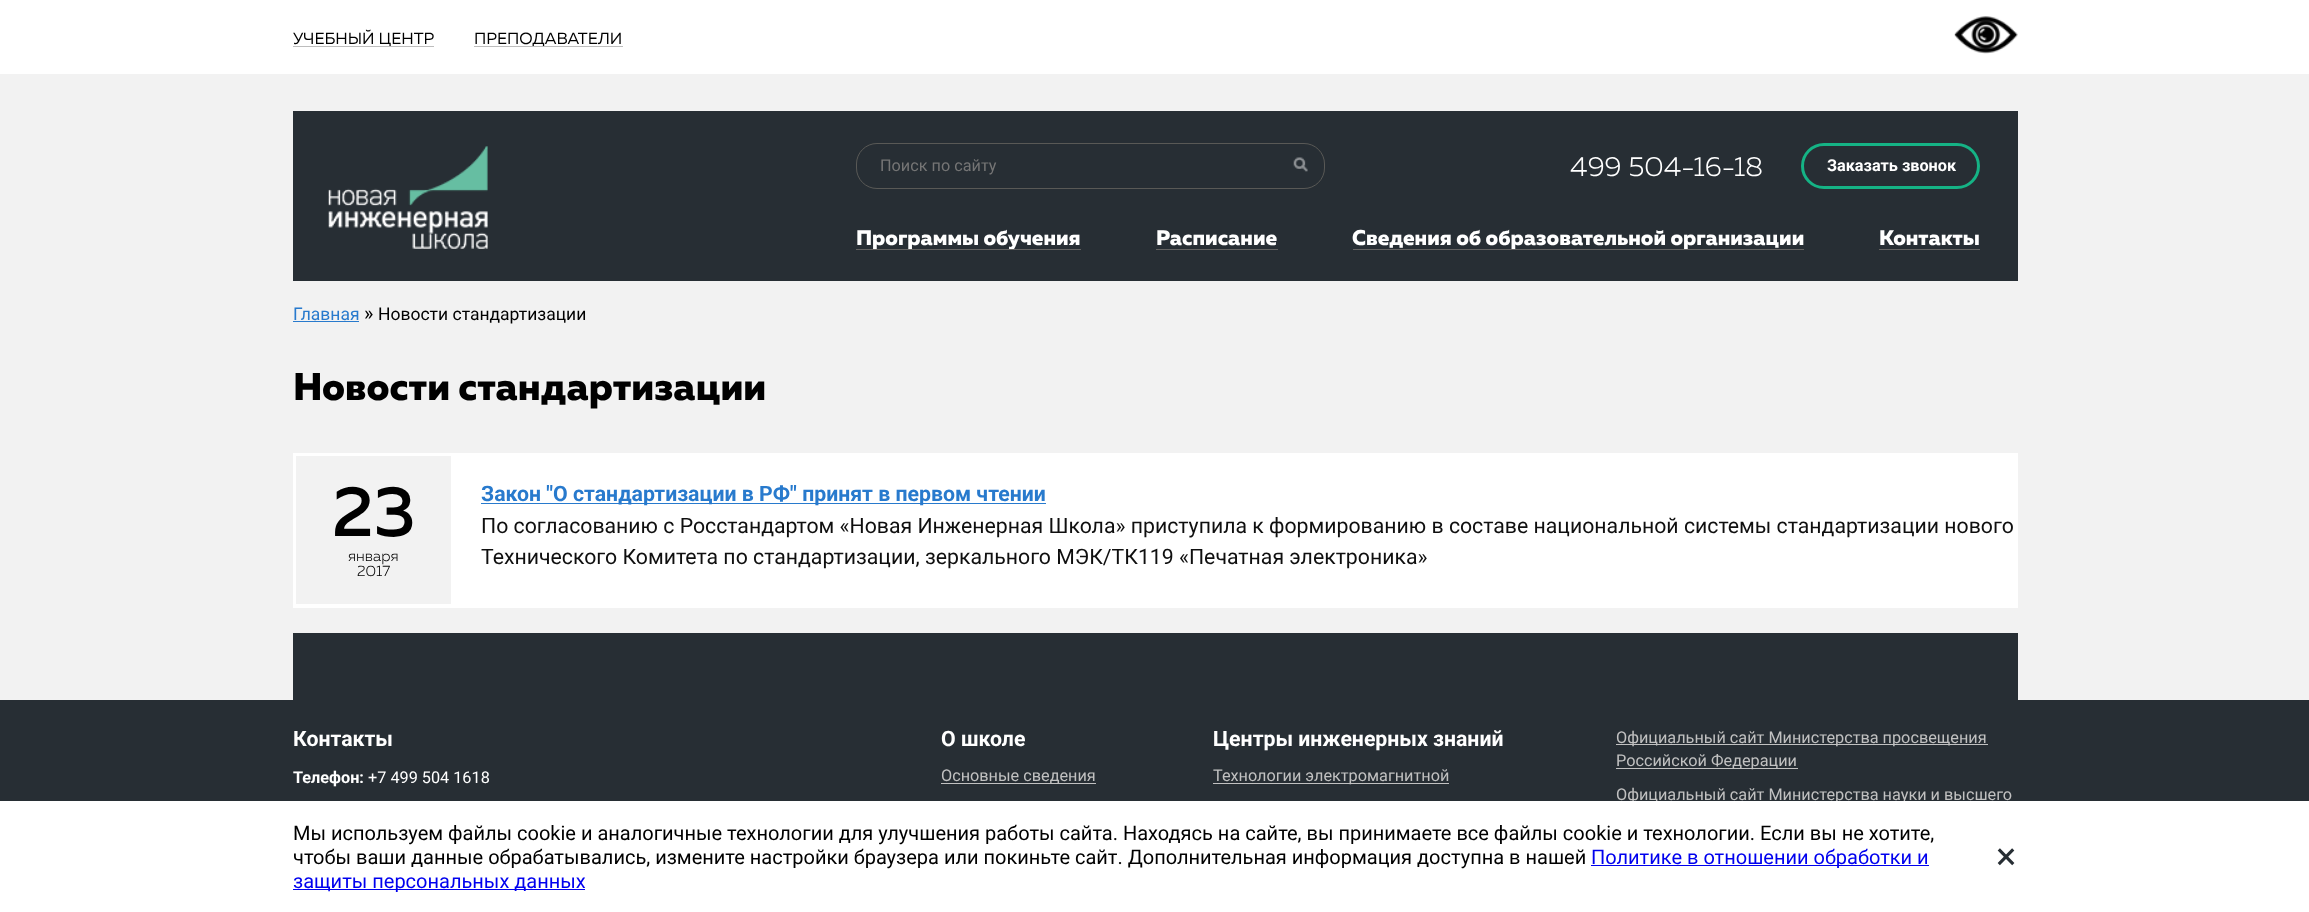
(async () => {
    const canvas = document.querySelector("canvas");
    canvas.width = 2309;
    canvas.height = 912;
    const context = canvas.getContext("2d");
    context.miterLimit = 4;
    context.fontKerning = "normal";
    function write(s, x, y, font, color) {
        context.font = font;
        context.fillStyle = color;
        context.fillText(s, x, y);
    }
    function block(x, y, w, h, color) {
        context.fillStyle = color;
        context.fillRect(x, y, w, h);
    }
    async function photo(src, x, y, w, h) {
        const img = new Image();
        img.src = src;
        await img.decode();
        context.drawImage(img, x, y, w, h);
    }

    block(0, 0, 2309, 912, "rgb(242, 242, 242)");
    block(0, 0, 2309, 74, "rgb(255, 255, 255)");
    write("УЧЕБНЫЙ ЦЕНТР", 293, 44, "16.25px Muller", "rgb(0, 0, 0)");
    block(293, 46, 141, 1, "rgb(189, 189, 189)");
    write("ПРЕПОДАВАТЕЛИ", 474, 44, "16.25px Muller", "rgb(0, 0, 0)");
    block(474, 46, 149, 1, "rgb(189, 189, 189)");
    await photo("media/1.png", 1954, 16, 64, 38);
    block(293, 111, 1725, 170, "rgb(39, 46, 52)");
    await photo("media/2.png", 328, 146, 160, 103);
    context.beginPath();
    context.roundRect(856.5, 143.5, 468, 45, 20.5);
    context.strokeStyle = "rgb(89, 89, 86)";
    context.stroke();
    write("Поиск по сайту", 880, 171, "16.25px Roboto", "rgb(117, 117, 117)");
    await photo("media/3.png", 1293, 157, 15, 15);
    write("499 504-16-18", 1570, 176, "300 27.5px Muller", "rgb(255, 255, 255)");
    context.beginPath();
    context.roundRect(1802.5, 144.5, 176, 43, 21.5);
    context.strokeStyle = "rgb(21, 179, 133)";
    context.lineWidth = 3;
    context.stroke();
    write("Заказать звонок", 1827, 171, "bold 16.25px Roboto", "rgb(255, 255, 255)");
    write("Программы обучения", 856, 245, "800 21.25px Muller", "rgb(255, 255, 255)");
    block(856, 249, 225, 1, "rgb(101, 100, 99)");
    write("Расписание", 1156, 245, "800 21.25px Muller", "rgb(255, 255, 255)");
    block(1156, 249, 122, 1, "rgb(101, 100, 99)");
    write("Сведения об образовательной организации", 1352, 245, "800 21.25px Muller", "rgb(255, 255, 255)");
    block(1353, 249, 451, 1, "rgb(101, 100, 99)");
    write("Контакты", 1879, 245, "800 21.25px Muller", "rgb(255, 255, 255)");
    block(1879, 249, 101, 1, "rgb(101, 100, 99)");
    write("Главная", 293, 320, "17.5px Roboto", "rgb(40, 122, 205)");
    block(293, 321, 66, 1, "rgb(40, 122, 205)");
    write("»", 364, 320, "20px Roboto", "rgb(0, 0, 0)");
    write("Новости стандартизации", 378, 320, "17.5px Roboto", "rgb(0, 0, 0)");
    write("Новости стандартизации", 293, 400, "800 38.75px Muller", "rgb(0, 0, 0)");
    block(293, 453, 1725, 155, "rgb(255, 255, 255)");
    block(296, 456, 155, 148, "rgb(242, 242, 242)");
    write("23", 332, 536, "500 71px Muller", "rgb(0, 0, 0)");
    write("января", 348, 561, "300 15px Muller", "rgb(0, 0, 0)");
    write("2017", 357, 576, "300 15px Muller", "rgb(0, 0, 0)");
    block(481, 503, 565, 1, "rgb(40, 122, 205)");
    write("Закон \"О стандартизации в РФ\" принят в первом чтении", 481, 501, "bold 21.25px Roboto", "rgb(40, 122, 205)");
    write("По согласованию с Росстандартом «Новая Инженерная Школа» приступила к формированию в составе национальной системы стандартизации нового", 481, 533, "21.25px Roboto", "rgb(15, 15, 15)");
    write("Технического Комитета по стандартизации, зеркального МЭК/ТК119 «Печатная электроника»", 481, 564, "21.25px Roboto", "rgb(15, 15, 15)");
    block(293, 633, 1725, 67, "rgb(39, 46, 52)");
    block(0, 700, 2309, 101, "rgb(39, 46, 52)");
    write("Контакты", 293, 746, "bold 21.25px Roboto", "rgb(255, 255, 255)");
    write("Телефон:", 293, 783, "bold 16.25px Roboto", "rgb(255, 255, 255)");
    write("+7 499 504 1618", 368, 783, "16.25px Roboto", "rgb(255, 255, 255)");
    write("О школе", 941, 746, "bold 21.25px Roboto", "rgb(255, 255, 255)");
    block(941, 783, 155, 1, "rgb(193, 193, 193)");
    write("Основные сведения", 941, 781, "16.25px Roboto", "rgb(193, 193, 193)");
    write("Центры инженерных знаний", 1213, 746, "bold 21.25px Roboto", "rgb(255, 255, 255)");
    block(1213, 783, 236, 1, "rgb(193, 193, 193)");
    write("Технологии электромагнитной", 1213, 781, "16.25px Roboto", "rgb(193, 193, 193)");
    block(1616, 744, 372, 1, "rgb(193, 193, 193)");
    write("Официальный сайт Министерства просвещения", 1616, 743, "16.25px Roboto", "rgb(193, 193, 193)");
    block(1616, 768, 182, 1, "rgb(193, 193, 193)");
    write("Российской Федерации", 1616, 766, "16.25px Roboto", "rgb(193, 193, 193)");
    write("Официальный сайт Министерства науки и высшего", 1616, 800, "16.25px Roboto", "rgb(193, 193, 193)");
    block(0, 801, 2309, 111, "rgb(255, 255, 255)");
    write("Мы используем файлы cookie и аналогичные технологии для улучшения работы сайта. Находясь на сайте, вы принимаете все файлы cookie и технологии. Если вы не хотите,", 293, 840, "20px Roboto", "rgb(0, 0, 0)");
    write("чтобы ваши данные обрабатывались, измените настройки браузера или покиньте сайт. Дополнительная информация доступна в нашей", 293, 864, "20px Roboto", "rgb(0, 0, 0)");
    block(1591, 865, 338, 1, "rgb(0, 0, 238)");
    write("Политике в отношении обработки и", 1591, 864, "20px Roboto", "rgb(0, 0, 238)");
    block(293, 889, 292, 1, "rgb(0, 0, 238)");
    write("защиты персональных данных", 293, 888, "20px Roboto", "rgb(0, 0, 238)");
    write("×", 1996, 869, "38px Roboto", "rgb(39, 46, 52)");
})();
